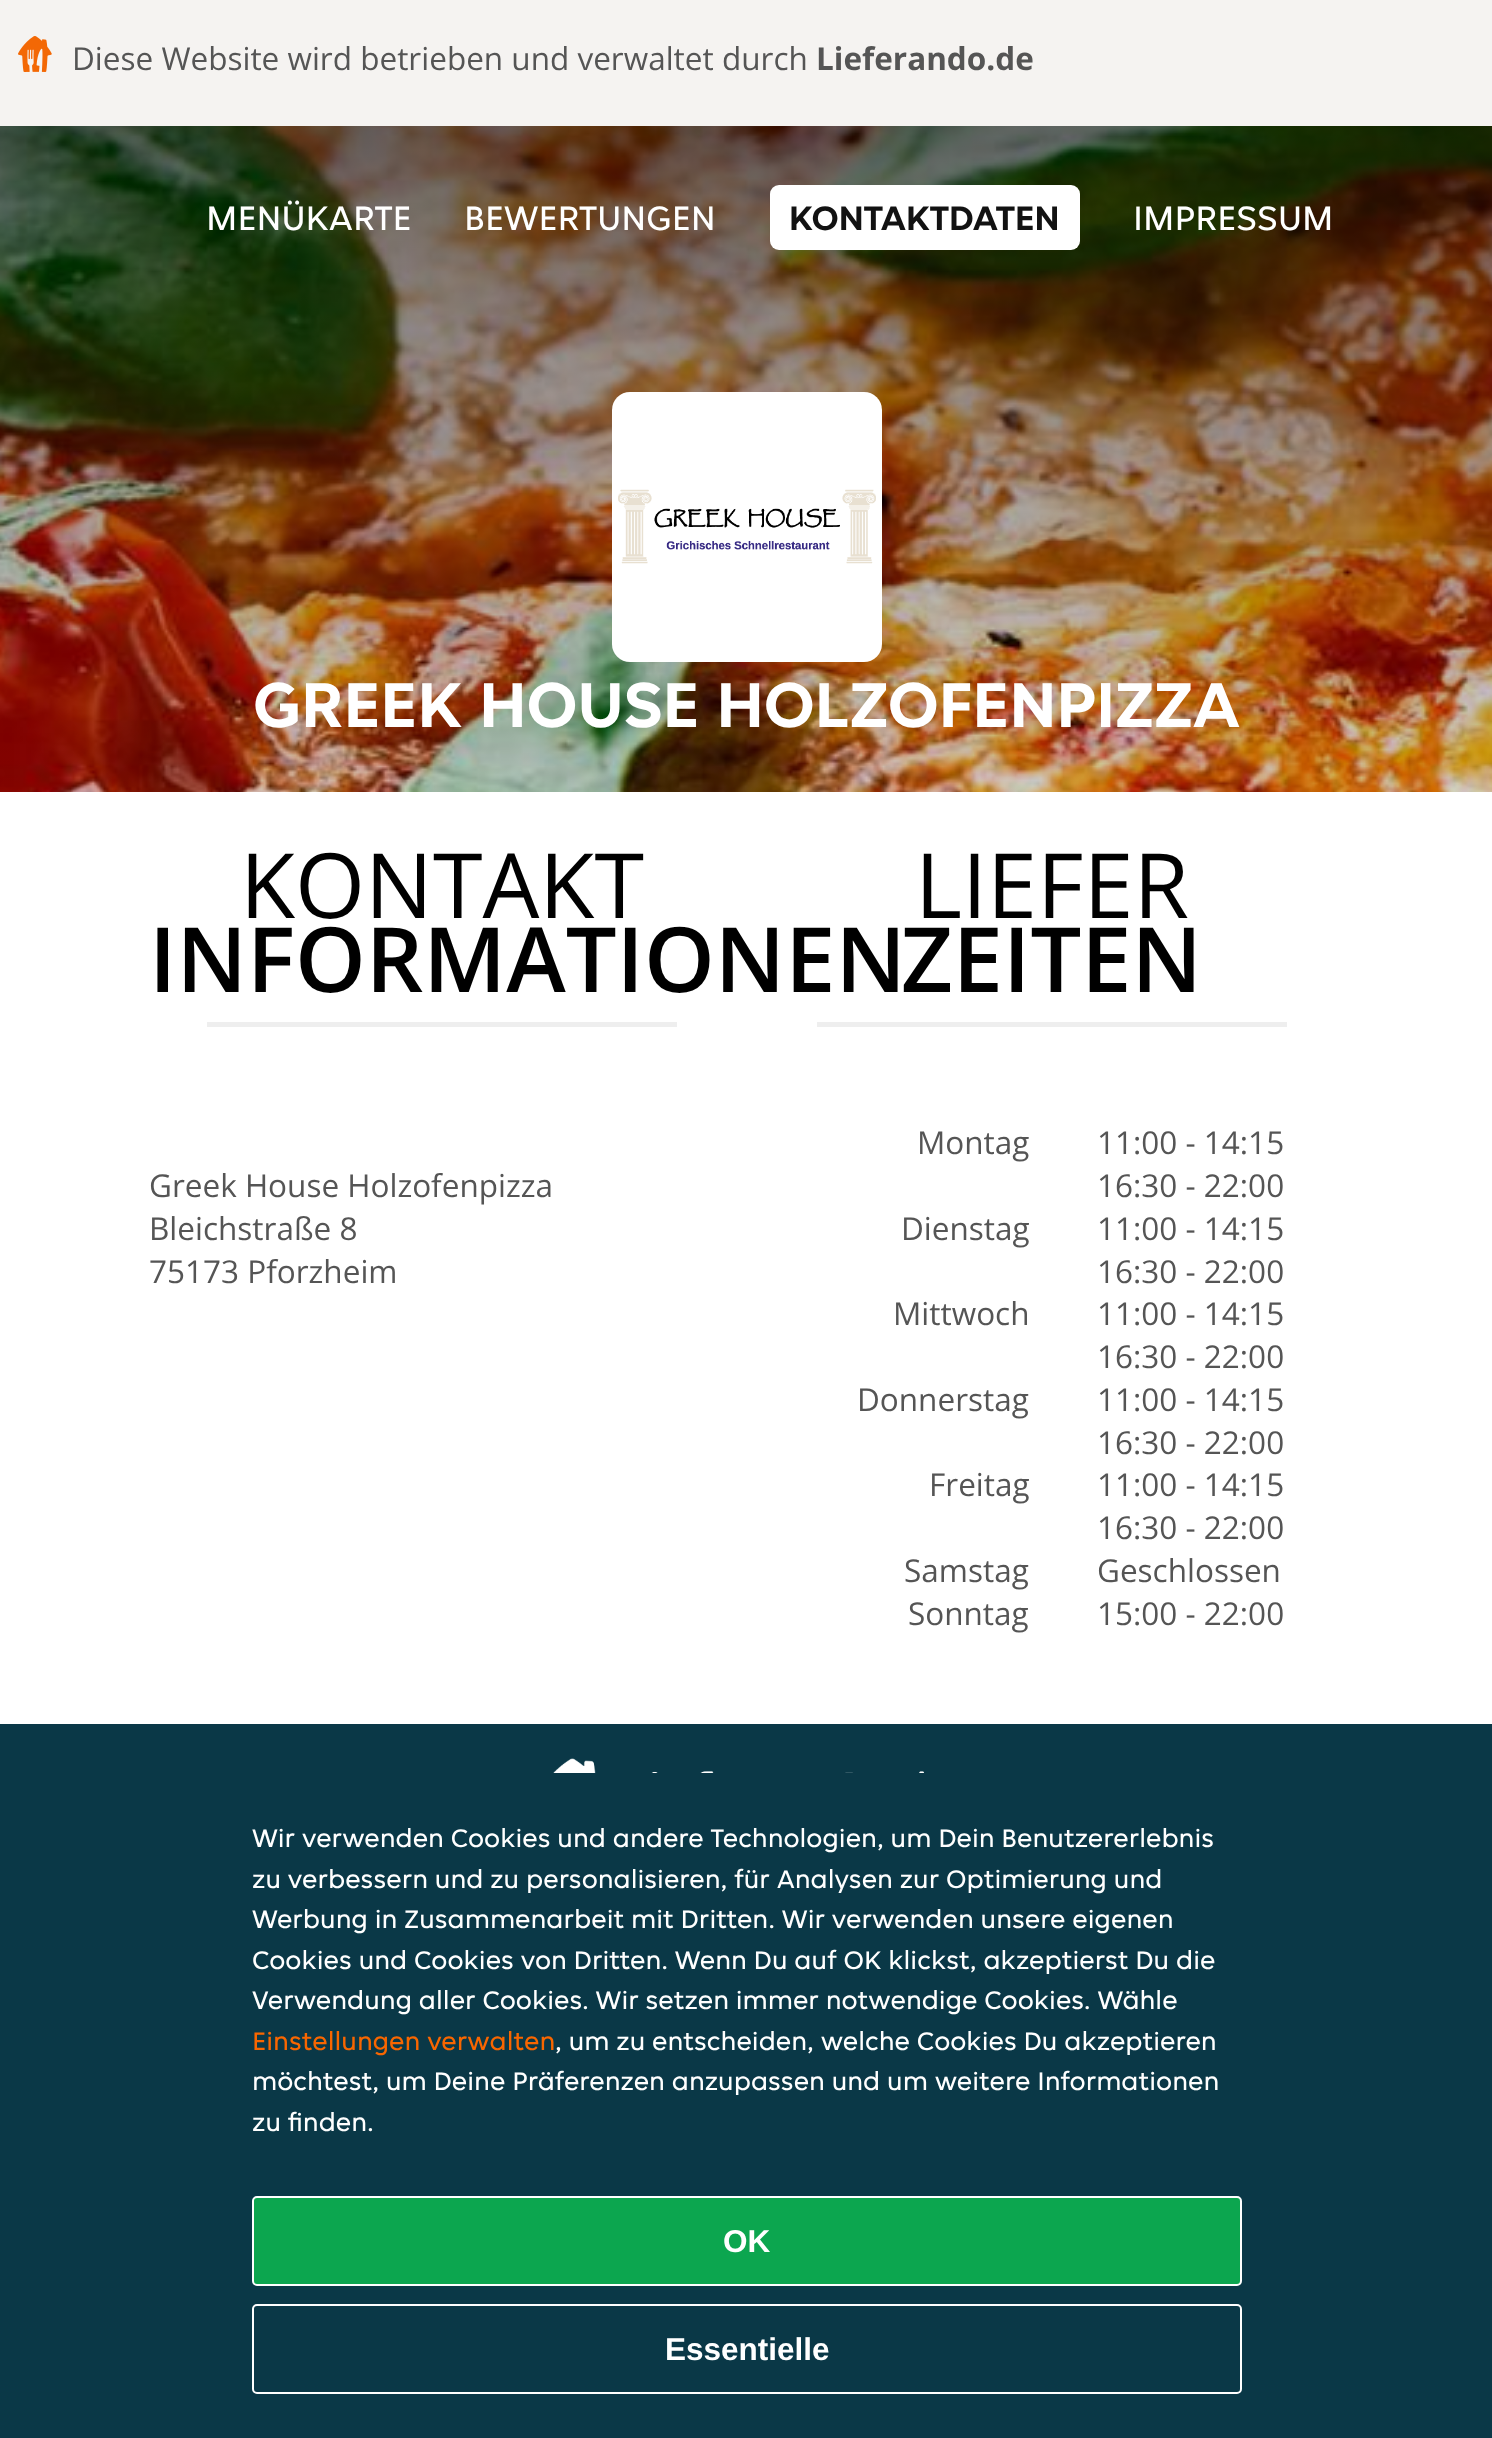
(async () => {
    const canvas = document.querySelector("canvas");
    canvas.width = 1492;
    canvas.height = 2438;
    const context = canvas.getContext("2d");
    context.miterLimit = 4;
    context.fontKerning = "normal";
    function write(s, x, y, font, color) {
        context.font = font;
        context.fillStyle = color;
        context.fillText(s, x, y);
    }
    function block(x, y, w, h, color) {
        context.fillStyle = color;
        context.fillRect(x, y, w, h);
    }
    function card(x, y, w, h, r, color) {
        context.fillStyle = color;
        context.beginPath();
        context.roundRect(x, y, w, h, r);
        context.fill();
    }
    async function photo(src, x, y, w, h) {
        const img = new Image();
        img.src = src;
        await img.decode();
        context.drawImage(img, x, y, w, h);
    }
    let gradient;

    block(0, 0, 1492, 2438, "rgb(255, 255, 255)");
    block(0, 0, 1492, 126, "rgb(245, 243, 241)");
    await photo("media/1.png", 18, 36, 34, 36);
    write("Diese Website wird betrieben und verwaltet durch", 72, 70, "31.5px Open Sans", "rgb(85, 85, 85)");
    write("Lieferando.de", 816, 70, "bold 31.5px Open Sans", "rgb(85, 85, 85)");
    await photo("media/2.png", 0, 126, 1492, 666);
    gradient = context.createLinearGradient(747, 0, 747, 1125);
    gradient.addColorStop(0, "rgba(0, 0, 0, 0.7)");
    gradient.addColorStop(0.33, "rgba(0, 0, 0, 0.4)");
    gradient.addColorStop(0.67, "rgba(0, 0, 0, 0.2)");
    gradient.addColorStop(1, "rgba(0, 0, 0, 0)");
    context.fillStyle = gradient;
    context.fillRect(0, 126, 1492, 666);
    write("MENÜKARTE", 206, 230, "36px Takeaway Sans", "rgb(255, 255, 255)");
    write("BEWERTUNGEN", 464, 230, "36px Takeaway Sans", "rgb(255, 255, 255)");
    card(770, 185, 310, 65, 9, "rgb(255, 255, 255)");
    write("KONTAKTDATEN", 789, 230, "bold 36px Takeaway Sans", "rgb(18, 18, 18)");
    write("IMPRESSUM", 1133, 230, "36px Takeaway Sans", "rgb(255, 255, 255)");
    card(612, 392, 270, 270, 18, "rgb(255, 255, 255)");
    await photo("media/3.png", 618, 489, 258, 75);
    write("GREEK HOUSE HOLZOFENPIZZA", 253, 727, "bold 67.5px Takeaway Sans", "rgb(255, 255, 255)");
    write("KONTAKT", 240, 918, "90px Open Sans", "rgb(0, 0, 0)");
    write("INFORMATIONEN", 149, 992, "600 90px Open Sans", "rgb(0, 0, 0)");
    block(207, 1022, 470, 5, "rgb(238, 238, 238)");
    write("Greek House Holzofenpizza", 149, 1197, "31.5px Open Sans", "rgb(85, 85, 85)");
    write("Bleichstraße 8", 149, 1240, "31.5px Open Sans", "rgb(85, 85, 85)");
    write("75173 Pforzheim", 149, 1283, "31.5px Open Sans", "rgb(85, 85, 85)");
    write("LIEFER", 915, 918, "90px Open Sans", "rgb(0, 0, 0)");
    write("ZEITEN", 901, 992, "600 90px Open Sans", "rgb(0, 0, 0)");
    block(817, 1022, 470, 5, "rgb(238, 238, 238)");
    write("Montag", 917, 1154, "31.5px Open Sans", "rgb(85, 85, 85)");
    write("11:00 - 14:15", 1097, 1154, "31.5px Open Sans", "rgb(85, 85, 85)");
    write("16:30 - 22:00", 1097, 1197, "31.5px Open Sans", "rgb(85, 85, 85)");
    write("Dienstag", 901, 1240, "31.5px Open Sans", "rgb(85, 85, 85)");
    write("11:00 - 14:15", 1097, 1240, "31.5px Open Sans", "rgb(85, 85, 85)");
    write("16:30 - 22:00", 1097, 1283, "31.5px Open Sans", "rgb(85, 85, 85)");
    write("Mittwoch", 893, 1325, "31.5px Open Sans", "rgb(85, 85, 85)");
    write("11:00 - 14:15", 1097, 1325, "31.5px Open Sans", "rgb(85, 85, 85)");
    write("16:30 - 22:00", 1097, 1368, "31.5px Open Sans", "rgb(85, 85, 85)");
    write("Donnerstag", 857, 1411, "31.5px Open Sans", "rgb(85, 85, 85)");
    write("11:00 - 14:15", 1097, 1411, "31.5px Open Sans", "rgb(85, 85, 85)");
    write("16:30 - 22:00", 1097, 1454, "31.5px Open Sans", "rgb(85, 85, 85)");
    write("Freitag", 929, 1496, "31.5px Open Sans", "rgb(85, 85, 85)");
    write("11:00 - 14:15", 1097, 1496, "31.5px Open Sans", "rgb(85, 85, 85)");
    write("16:30 - 22:00", 1097, 1539, "31.5px Open Sans", "rgb(85, 85, 85)");
    write("Samstag", 904, 1582, "31.5px Open Sans", "rgb(85, 85, 85)");
    write("Geschlossen", 1097, 1582, "31.5px Open Sans", "rgb(85, 85, 85)");
    write("Sonntag", 908, 1625, "31.5px Open Sans", "rgb(85, 85, 85)");
    write("15:00 - 22:00", 1097, 1625, "31.5px Open Sans", "rgb(85, 85, 85)");
    block(0, 1724, 1492, 714, "rgb(10, 56, 71)");
    await photo("media/4.png", 553, 1758, 371, 15);
    write("Wir verwenden Cookies und andere Technologien, um Dein Benutzererlebnis", 252, 1847, "27px Takeaway Sans", "rgb(255, 255, 255)");
    write("zu verbessern und zu personalisieren, für Analysen zur Optimierung und", 252, 1888, "27px Takeaway Sans", "rgb(255, 255, 255)");
    write("Werbung in Zusammenarbeit mit Dritten. Wir verwenden unsere eigenen", 252, 1928, "27px Takeaway Sans", "rgb(255, 255, 255)");
    write("Cookies und Cookies von Dritten. Wenn Du auf OK klickst, akzeptierst Du die", 252, 1969, "27px Takeaway Sans", "rgb(255, 255, 255)");
    write("Verwendung aller Cookies. Wir setzen immer notwendige Cookies. Wähle", 252, 2009, "27px Takeaway Sans", "rgb(255, 255, 255)");
    write("Einstellungen verwalten", 252, 2050, "27px Takeaway Sans", "rgb(248, 102, 0)");
    write(", um zu entscheiden, welche Cookies Du akzeptieren", 555, 2050, "27px Takeaway Sans", "rgb(255, 255, 255)");
    write("möchtest, um Deine Präferenzen anzupassen und um weitere Informationen", 252, 2090, "27px Takeaway Sans", "rgb(255, 255, 255)");
    write("zu finden.", 252, 2131, "27px Takeaway Sans", "rgb(255, 255, 255)");
    context.fillStyle = "rgb(12, 166, 79)";
    context.beginPath();
    context.roundRect(253, 2197, 988, 88, 4);
    context.fill();
    context.strokeStyle = "rgb(255, 255, 255)";
    context.lineWidth = 2;
    context.stroke();
    write("OK", 723, 2252, "bold 31.5px Liberation Sans", "rgb(255, 255, 255)");
    context.beginPath();
    context.roundRect(253, 2305, 988, 88, 4);
    context.stroke();
    write("Essentielle", 665, 2360, "bold 31.5px Liberation Sans", "rgb(255, 255, 255)");
})();
